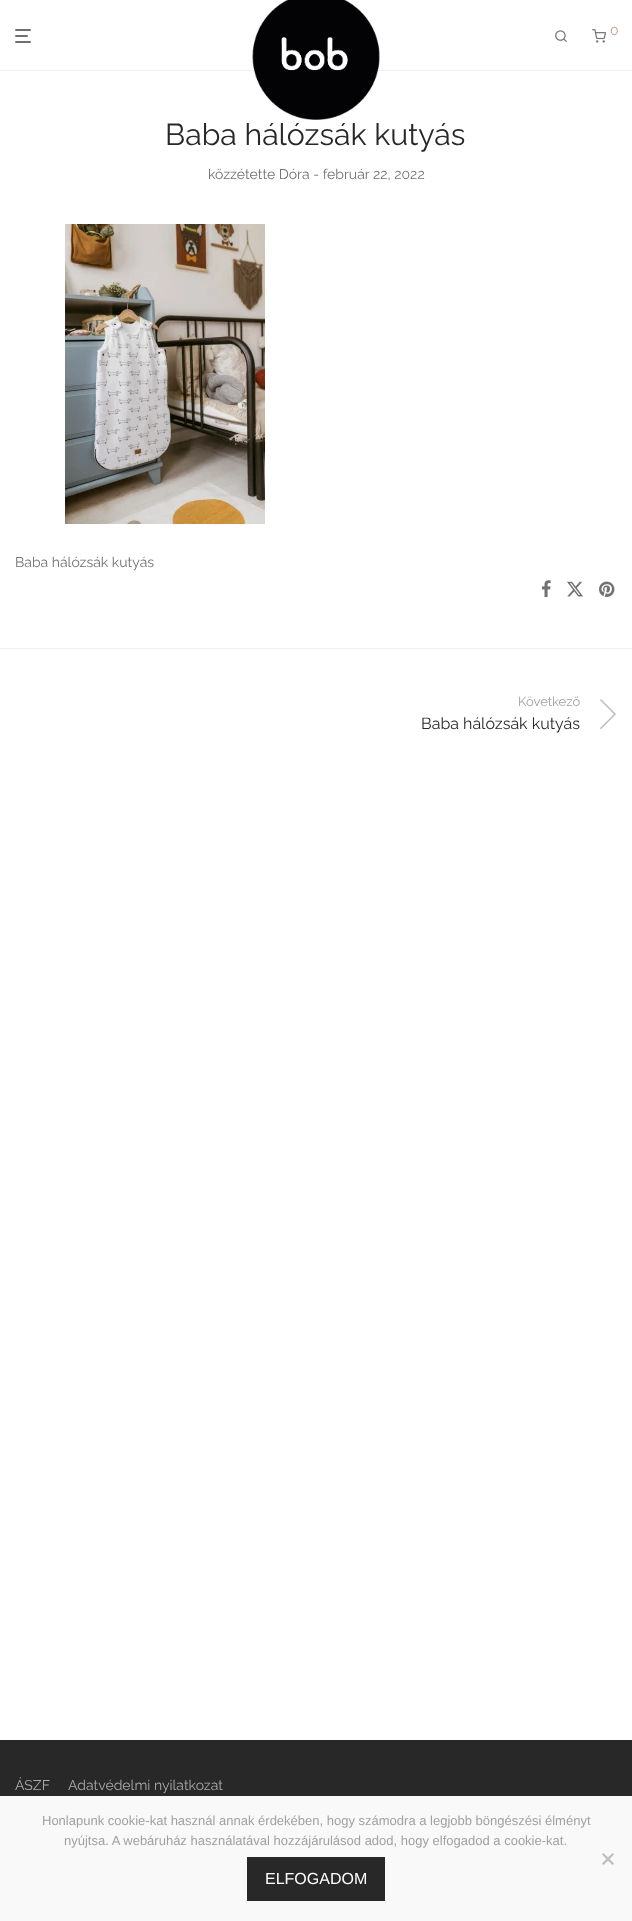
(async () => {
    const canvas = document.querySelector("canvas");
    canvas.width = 632;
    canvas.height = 1921;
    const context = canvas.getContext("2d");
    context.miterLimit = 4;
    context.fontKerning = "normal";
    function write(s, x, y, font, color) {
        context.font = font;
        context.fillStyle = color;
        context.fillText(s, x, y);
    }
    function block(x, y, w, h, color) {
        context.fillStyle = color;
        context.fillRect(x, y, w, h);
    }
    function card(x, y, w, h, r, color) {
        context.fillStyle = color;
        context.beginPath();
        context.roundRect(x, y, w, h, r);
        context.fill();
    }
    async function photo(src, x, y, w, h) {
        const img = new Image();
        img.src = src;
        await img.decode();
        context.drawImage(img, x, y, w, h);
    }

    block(0, 0, 632, 1921, "rgb(255, 255, 255)");
    block(0, 70, 632, 1, "rgb(238, 238, 238)");
    card(15, 29, 16, 2, 1, "rgb(112, 112, 112)");
    card(15, 35, 13, 2, 1, "rgb(112, 112, 112)");
    card(15, 41, 16, 2, 1, "rgb(112, 112, 112)");
    await photo("media/1.png", 252, 0, 128, 120);
    await photo("media/2.png", 555, 30, 12, 12);
    await photo("media/3.png", 592, 29, 14, 14);
    write("0", 610, 35, "14px Raleway", "rgb(193, 156, 143)");
    write("Baba hálózsák kutyás", 165, 145, "30.25px Raleway", "rgb(40, 40, 40)");
    write("közzétette Dóra - február 22, 2022", 208, 179, "14px Raleway", "rgb(113, 113, 113)");
    await photo("media/4.png", 63, 224, 208, 300);
    write("Baba hálózsák kutyás", 15, 567, "14px Raleway", "rgb(113, 113, 113)");
    await photo("media/5.png", 541, 580, 10, 17);
    await photo("media/6.png", 567, 581, 16, 16);
    await photo("media/7.png", 599, 581, 16, 16);
    block(0, 648, 632, 1, "rgb(238, 238, 238)");
    write("Következő", 518, 706, "13px Raleway", "rgb(161, 161, 161)");
    await photo("media/8.png", 600, 699, 16, 30);
    write("Baba hálózsák kutyás", 421, 729, "16px Raleway", "rgb(40, 40, 40)");
    block(0, 1740, 632, 56, "rgb(40, 40, 40)");
    write("ÁSZF", 15, 1790, "14px Raleway", "rgb(170, 170, 170)");
    write("Adatvédelmi nyilatkozat", 68, 1790, "14px Raleway", "rgb(170, 170, 170)");
    block(0, 1796, 632, 125, "rgb(249, 249, 249)");
    write("Honlapunk cookie-kat használ annak érdekében, hogy számodra a legjobb böngészési élményt", 42, 1825, "13px Liberation Sans", "rgb(161, 161, 161)");
    write("nyújtsa. A webáruház használatával hozzájárulásod adod, hogy elfogadod a cookie-kat.", 64, 1845, "13px Liberation Sans", "rgb(161, 161, 161)");
    context.fillStyle = "rgb(189, 189, 189)";
    context.beginPath();
    context.moveTo(612.5, 1853);
    context.lineTo(614, 1854.5);
    context.lineTo(603.5, 1865);
    context.lineTo(602, 1863.5);
    context.closePath();
    context.fill();
    context.beginPath();
    context.moveTo(602, 1854.5);
    context.lineTo(603.5, 1853);
    context.lineTo(614, 1863.5);
    context.lineTo(612.5, 1865);
    context.closePath();
    context.fill();
    block(247, 1857, 138, 44, "rgb(40, 40, 40)");
    write("ELFOGADOM", 265, 1884, "16px Liberation Sans", "rgb(255, 255, 255)");
})();
